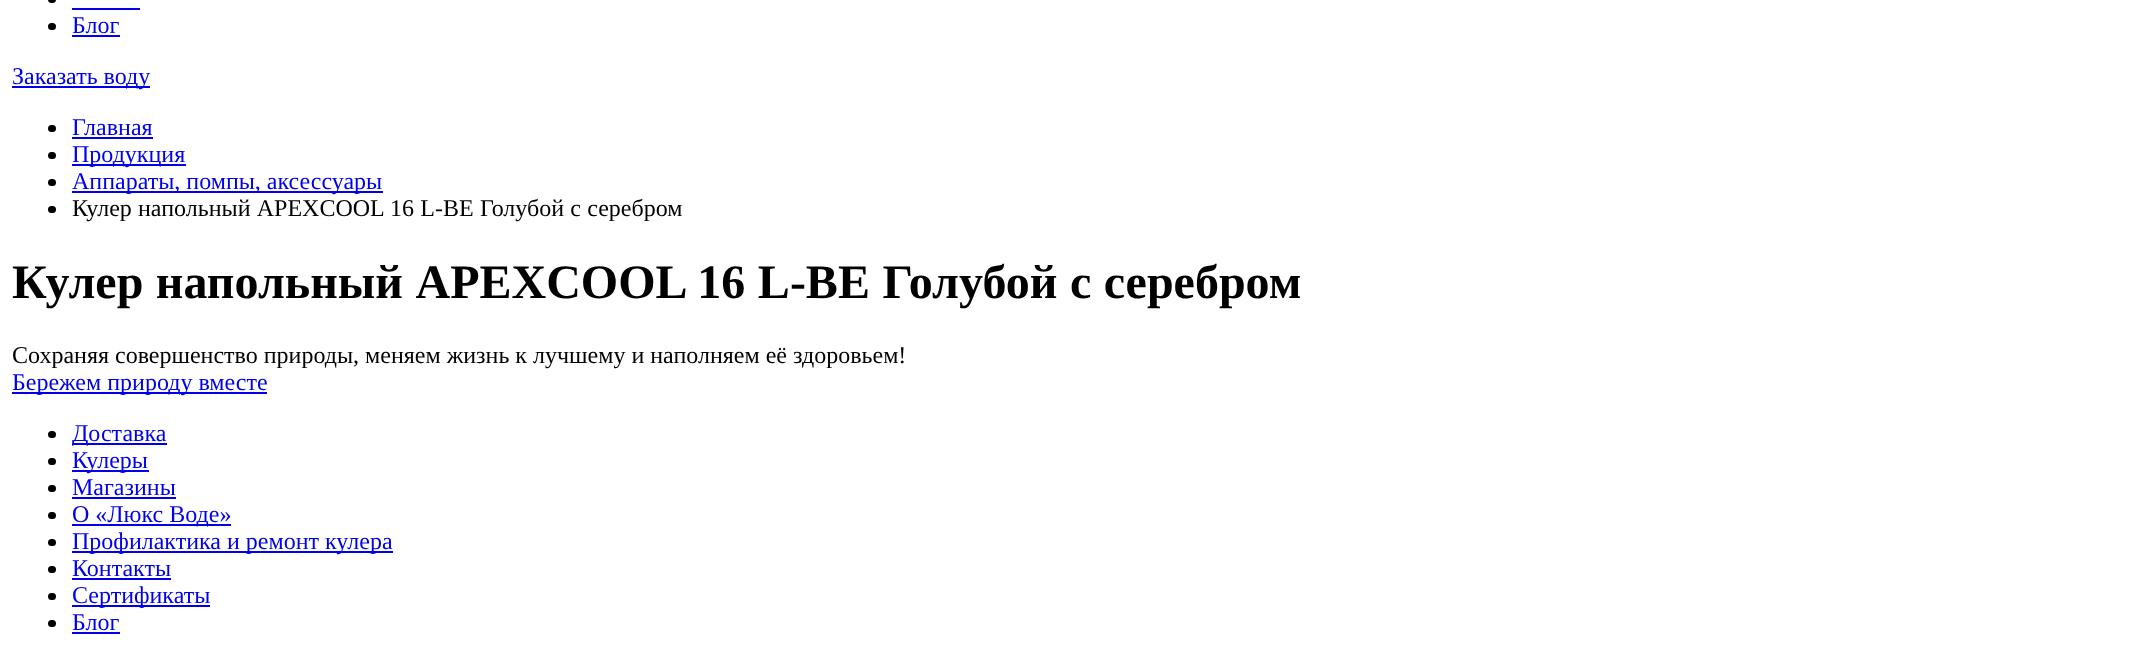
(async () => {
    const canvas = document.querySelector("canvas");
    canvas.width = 2154;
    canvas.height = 659;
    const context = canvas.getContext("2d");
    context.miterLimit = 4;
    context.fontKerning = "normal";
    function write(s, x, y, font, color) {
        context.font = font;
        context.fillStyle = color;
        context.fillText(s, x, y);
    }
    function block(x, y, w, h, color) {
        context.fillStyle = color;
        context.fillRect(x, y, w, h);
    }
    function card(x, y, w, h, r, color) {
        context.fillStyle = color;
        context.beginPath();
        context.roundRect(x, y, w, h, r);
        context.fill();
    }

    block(0, 0, 2154, 659, "rgb(255, 255, 255)");
    card(48, -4, 8, 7, 3.5, "rgb(0, 0, 0)");
    block(72, 8, 68, 2, "rgb(0, 0, 238)");
    card(48, 23, 8, 7, 3.5, "rgb(0, 0, 0)");
    write("Блог", 72, 33, "24px Liberation Serif", "rgb(0, 0, 238)");
    block(72, 35, 48, 2, "rgb(0, 0, 238)");
    block(12, 86, 138, 2, "rgb(0, 0, 238)");
    write("Заказать воду", 12, 84, "24px Liberation Serif", "rgb(0, 0, 238)");
    card(48, 125, 8, 7, 3.5, "rgb(0, 0, 0)");
    write("Главная", 72, 135, "24px Liberation Serif", "rgb(0, 0, 238)");
    block(72, 137, 81, 2, "rgb(0, 0, 238)");
    card(48, 152, 8, 7, 3.5, "rgb(0, 0, 0)");
    block(72, 164, 114, 2, "rgb(0, 0, 238)");
    write("Продукция", 72, 162, "24px Liberation Serif", "rgb(0, 0, 238)");
    card(48, 179, 8, 7, 3.5, "rgb(0, 0, 0)");
    block(72, 191, 311, 2, "rgb(0, 0, 238)");
    write("Аппараты, помпы, аксессуары", 72, 189, "24px Liberation Serif", "rgb(0, 0, 238)");
    card(48, 206, 8, 7, 3.5, "rgb(0, 0, 0)");
    context.wordSpacing = "0.25px";
    write("Кулер напольный APEXCOOL 16 L-BE Голубой с серебром", 72, 216, "24px Liberation Serif", "rgb(0, 0, 0)");
    context.wordSpacing = "0.5px";
    write("Кулер напольный APEXCOOL 16 L-BE Голубой с серебром", 12, 298, "bold 48px Liberation Serif", "rgb(0, 0, 0)");
    context.wordSpacing = "0px";
    write("Сохраняя совершенство природы, меняем жизнь к лучшему и наполняем её здоровьем!", 12, 363, "24px Liberation Serif", "rgb(0, 0, 0)");
    block(12, 392, 255, 2, "rgb(0, 0, 238)");
    write("Бережем природу вместе", 12, 390, "24px Liberation Serif", "rgb(0, 0, 238)");
    card(48, 431, 8, 7, 3.5, "rgb(0, 0, 0)");
    block(72, 443, 95, 2, "rgb(0, 0, 238)");
    write("Доставка", 72, 441, "24px Liberation Serif", "rgb(0, 0, 238)");
    card(48, 458, 8, 7, 3.5, "rgb(0, 0, 0)");
    block(72, 470, 77, 2, "rgb(0, 0, 238)");
    write("Кулеры", 72, 468, "24px Liberation Serif", "rgb(0, 0, 238)");
    card(48, 485, 8, 7, 3.5, "rgb(0, 0, 0)");
    write("Магазины", 72, 495, "24px Liberation Serif", "rgb(0, 0, 238)");
    block(72, 497, 104, 2, "rgb(0, 0, 238)");
    card(48, 512, 8, 7, 3.5, "rgb(0, 0, 0)");
    block(72, 524, 159, 2, "rgb(0, 0, 238)");
    write("О «Люкс Воде»", 72, 522, "24px Liberation Serif", "rgb(0, 0, 238)");
    card(48, 539, 8, 7, 3.5, "rgb(0, 0, 0)");
    block(72, 551, 321, 2, "rgb(0, 0, 238)");
    write("Профилактика и ремонт кулера", 72, 549, "24px Liberation Serif", "rgb(0, 0, 238)");
    card(48, 566, 8, 7, 3.5, "rgb(0, 0, 0)");
    write("Контакты", 72, 576, "24px Liberation Serif", "rgb(0, 0, 238)");
    block(72, 578, 99, 2, "rgb(0, 0, 238)");
    card(48, 593, 8, 7, 3.5, "rgb(0, 0, 0)");
    block(72, 605, 138, 2, "rgb(0, 0, 238)");
    write("Сертификаты", 72, 603, "24px Liberation Serif", "rgb(0, 0, 238)");
    card(48, 620, 8, 7, 3.5, "rgb(0, 0, 0)");
    write("Блог", 72, 630, "24px Liberation Serif", "rgb(0, 0, 238)");
    block(72, 632, 48, 2, "rgb(0, 0, 238)");
})();
